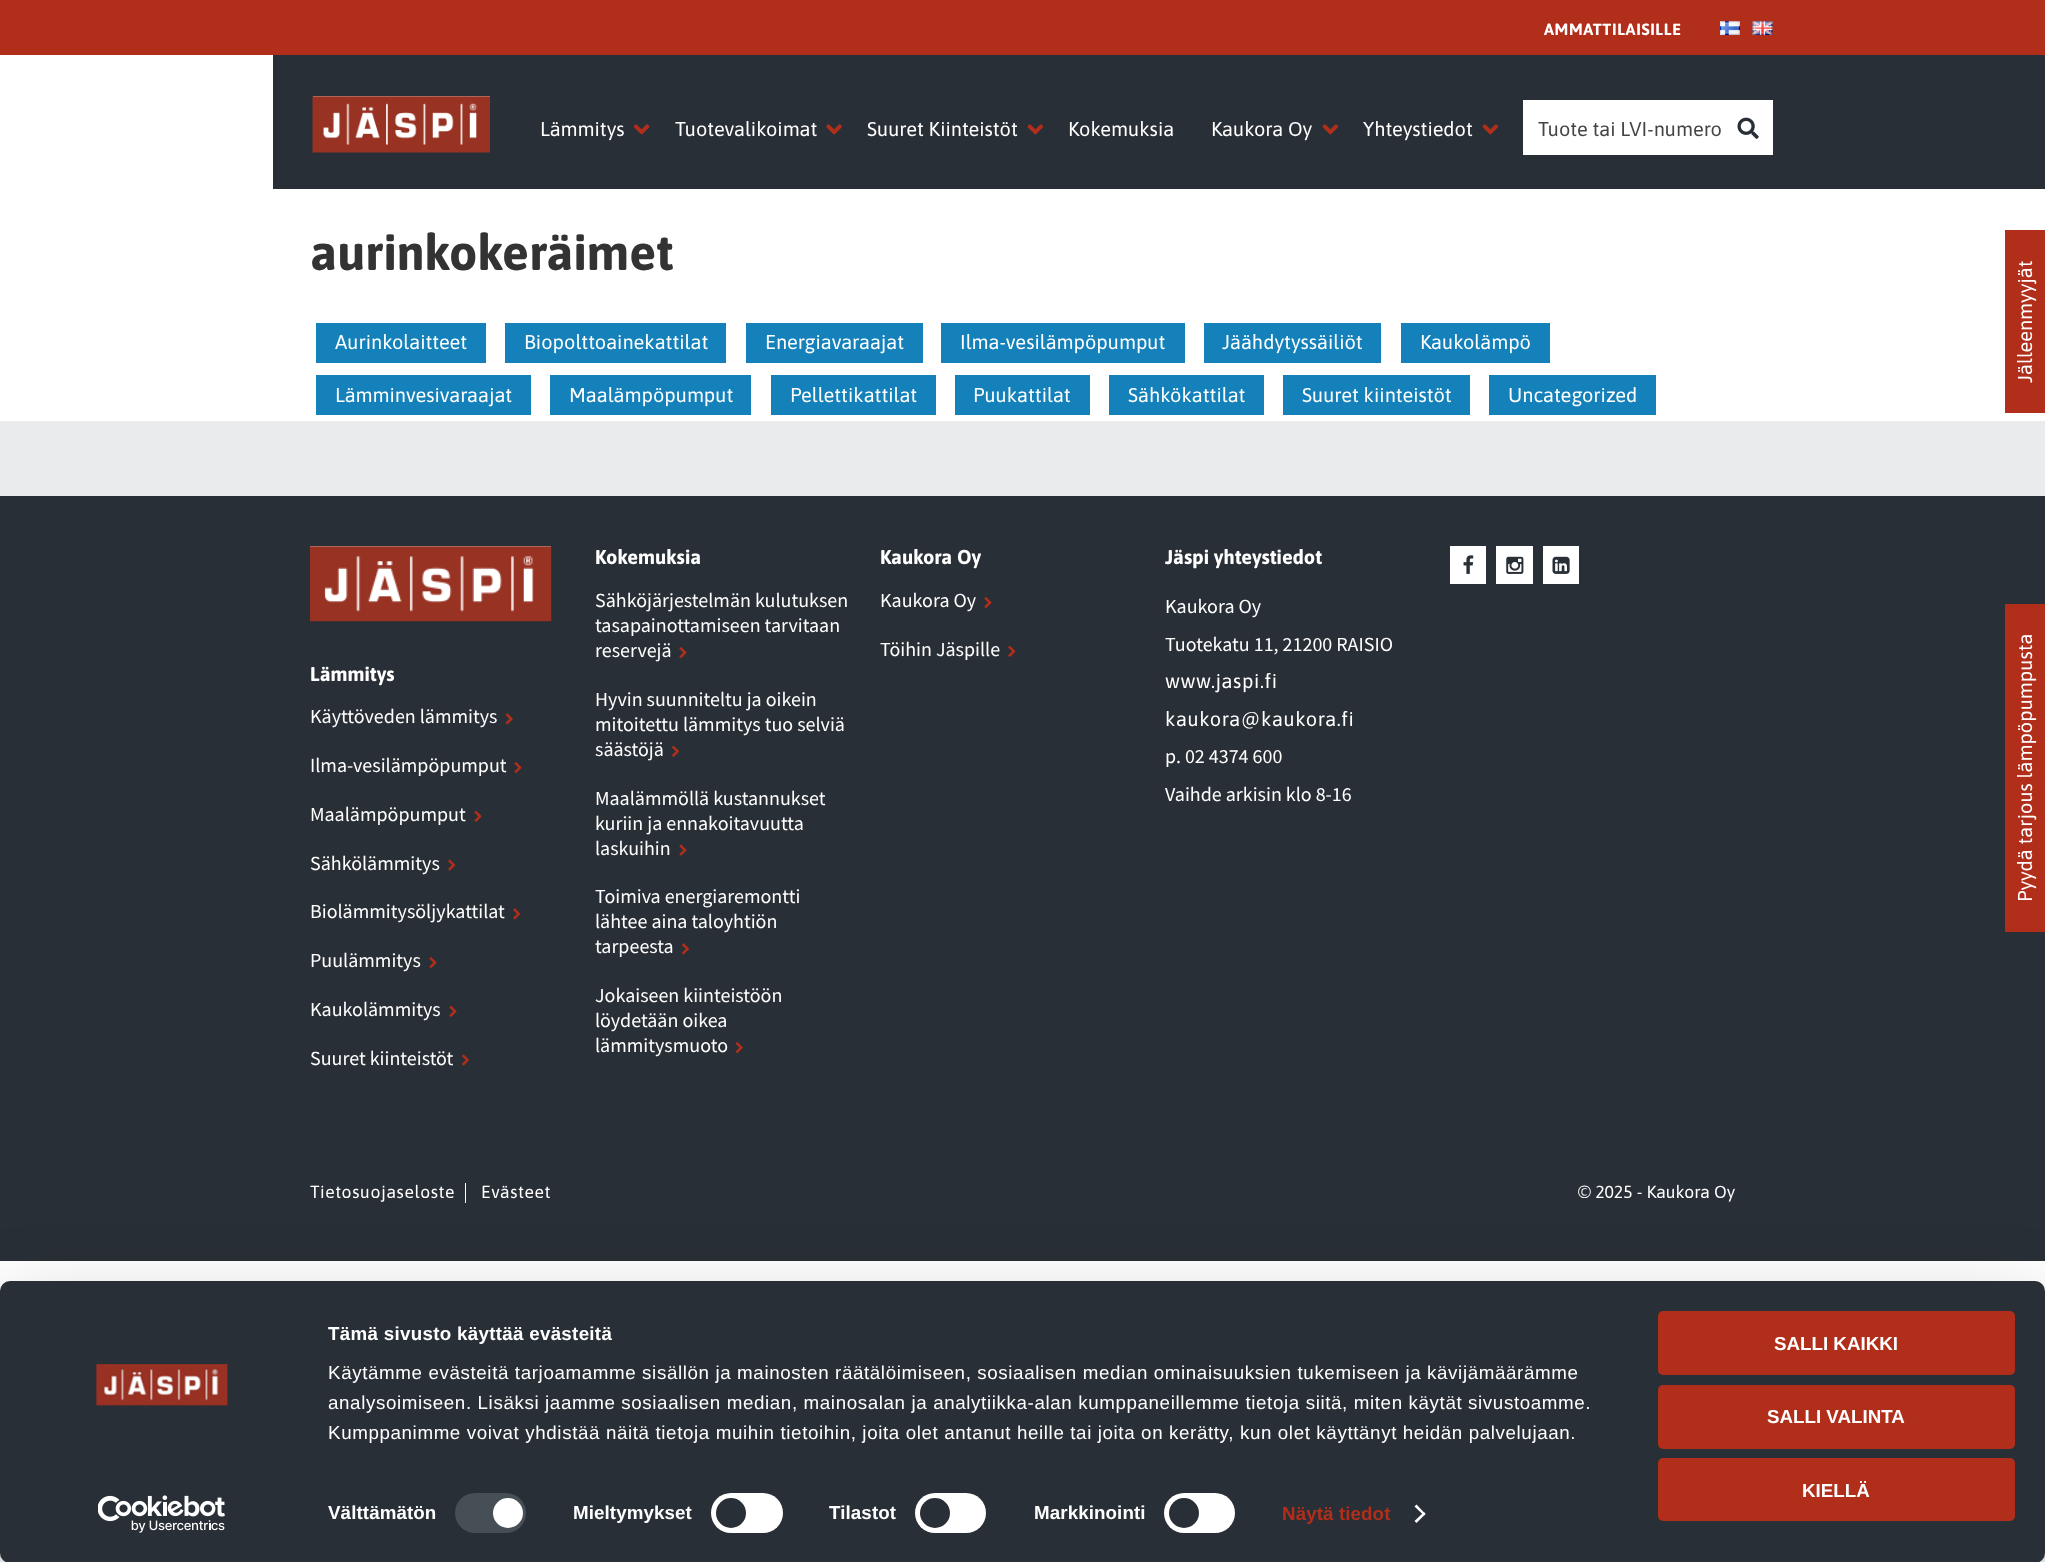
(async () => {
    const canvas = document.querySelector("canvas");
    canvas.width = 2045;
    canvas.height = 1562;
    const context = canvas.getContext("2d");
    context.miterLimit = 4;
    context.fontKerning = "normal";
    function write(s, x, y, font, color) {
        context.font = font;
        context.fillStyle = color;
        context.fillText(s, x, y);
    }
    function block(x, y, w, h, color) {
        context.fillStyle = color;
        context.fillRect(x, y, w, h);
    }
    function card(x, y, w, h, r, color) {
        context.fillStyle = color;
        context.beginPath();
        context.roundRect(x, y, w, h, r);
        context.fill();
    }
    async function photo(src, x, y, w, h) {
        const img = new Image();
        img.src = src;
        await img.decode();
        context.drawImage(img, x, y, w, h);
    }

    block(0, 0, 2045, 1562, "rgb(255, 255, 255)");
    block(0, 0, 2045, 55, "rgb(177, 46, 27)");
    context.letterSpacing = "0.62px";
    write("AMMATTILAISILLE", 1544, 35, "bold 16.25px Asap", "rgb(255, 255, 255)");
    await photo("media/1.png", 1720, 21, 20, 14);
    await photo("media/2.png", 1752, 21, 21, 14);
    block(273, 55, 1772, 134, "rgb(41, 47, 54)");
    block(313, 96, 177, 49, "rgb(255, 255, 255)");
    await photo("media/3.png", 312, 96, 178, 57);
    context.letterSpacing = "0px";
    write("Lämmitys", 540, 136, "20px Asap", "rgb(255, 255, 255)");
    await photo("media/4.png", 633, 124, 17, 11);
    write("Tuotevalikoimat", 675, 136, "20px Asap", "rgb(255, 255, 255)");
    await photo("media/5.png", 826, 124, 16, 11);
    write("Suuret Kiinteistöt", 867, 136, "20px Asap", "rgb(255, 255, 255)");
    await photo("media/6.png", 1027, 124, 17, 11);
    write("Kokemuksia", 1068, 136, "20px Asap", "rgb(255, 255, 255)");
    write("Kaukora Oy", 1211, 136, "20px Asap", "rgb(255, 255, 255)");
    await photo("media/6.png", 1322, 124, 17, 11);
    write("Yhteystiedot", 1363, 136, "20px Asap", "rgb(255, 255, 255)");
    await photo("media/6.png", 1482, 124, 17, 11);
    block(1523, 100, 250, 55, "rgb(255, 255, 255)");
    write("Tuote tai LVI-numero", 1538, 136, "20px Asap", "rgb(69, 69, 69)");
    await photo("media/7.png", 1737, 117, 22, 22);
    block(2005, 230, 40, 183, "rgb(177, 46, 27)");
    context.fillStyle = "rgb(255, 255, 255)";
    context.save();
    context.translate(2032, 383);
    context.rotate(-90 * Math.PI / 180);
    context.fillText("Jälleenmyyjät", 0, 0);
    context.restore();
    block(0, 496, 2045, 765, "rgb(41, 47, 54)");
    block(2005, 604, 40, 328, "rgb(177, 46, 27)");
    context.fillStyle = "rgb(255, 255, 255)";
    context.save();
    context.translate(2032, 902);
    context.rotate(-90 * Math.PI / 180);
    context.fillText("Pyydä tarjous lämpöpumpusta", 0, 0);
    context.restore();
    write("aurinkokeräimet", 310, 270, "bold 50px Asap", "rgb(51, 51, 51)");
    block(316, 323, 170, 40, "rgb(20, 129, 186)");
    write("Aurinkolaitteet", 335, 349, "20px Asap", "rgb(255, 255, 255)");
    block(505, 323, 221, 40, "rgb(20, 129, 186)");
    write("Biopolttoainekattilat", 524, 349, "20px Asap", "rgb(255, 255, 255)");
    block(746, 323, 177, 40, "rgb(20, 129, 186)");
    write("Energiavaraajat", 765, 349, "20px Asap", "rgb(255, 255, 255)");
    block(941, 323, 244, 40, "rgb(20, 129, 186)");
    write("Ilma-vesilämpöpumput", 960, 349, "20px Asap", "rgb(255, 255, 255)");
    block(1204, 323, 177, 40, "rgb(20, 129, 186)");
    write("Jäähdytyssäiliöt", 1222, 349, "20px Asap", "rgb(255, 255, 255)");
    block(1401, 323, 149, 40, "rgb(20, 129, 186)");
    write("Kaukolämpö", 1420, 349, "20px Asap", "rgb(255, 255, 255)");
    block(316, 375, 215, 40, "rgb(20, 129, 186)");
    write("Lämminvesivaraajat", 335, 402, "20px Asap", "rgb(255, 255, 255)");
    block(550, 375, 201, 40, "rgb(20, 129, 186)");
    write("Maalämpöpumput", 569, 402, "20px Asap", "rgb(255, 255, 255)");
    block(771, 375, 165, 40, "rgb(20, 129, 186)");
    write("Pellettikattilat", 790, 402, "20px Asap", "rgb(255, 255, 255)");
    block(955, 375, 135, 40, "rgb(20, 129, 186)");
    write("Puukattilat", 973, 402, "20px Asap", "rgb(255, 255, 255)");
    block(1109, 375, 155, 40, "rgb(20, 129, 186)");
    write("Sähkökattilat", 1128, 402, "20px Asap", "rgb(255, 255, 255)");
    block(1283, 375, 187, 40, "rgb(20, 129, 186)");
    write("Suuret kiinteistöt", 1302, 402, "20px Asap", "rgb(255, 255, 255)");
    block(1489, 375, 167, 40, "rgb(20, 129, 186)");
    write("Uncategorized", 1508, 402, "20px Asap", "rgb(255, 255, 255)");
    block(0, 421, 2045, 75, "rgb(234, 235, 237)");
    block(310, 546, 241, 66, "rgb(255, 255, 255)");
    await photo("media/8.png", 310, 546, 242, 76);
    write("Lämmitys", 310, 681, "bold 20px Asap", "rgb(255, 255, 255)");
    write("Käyttöveden lämmitys", 310, 723, "20px Source Sans Pro", "rgb(255, 255, 255)");
    await photo("media/9.png", 505, 713, 8, 12);
    write("Ilma-vesilämpöpumput", 310, 772, "20px Source Sans Pro", "rgb(255, 255, 255)");
    await photo("media/10.png", 514, 762, 8, 12);
    write("Maalämpöpumput", 310, 821, "20px Source Sans Pro", "rgb(255, 255, 255)");
    await photo("media/11.png", 474, 810, 8, 12);
    write("Sähkölämmitys", 310, 870, "20px Source Sans Pro", "rgb(255, 255, 255)");
    await photo("media/12.png", 448, 859, 8, 12);
    write("Biolämmitysöljykattilat", 310, 918, "20px Source Sans Pro", "rgb(255, 255, 255)");
    await photo("media/13.png", 513, 908, 8, 12);
    write("Puulämmitys", 310, 967, "20px Source Sans Pro", "rgb(255, 255, 255)");
    await photo("media/10.png", 429, 957, 8, 12);
    write("Kaukolämmitys", 310, 1016, "20px Source Sans Pro", "rgb(255, 255, 255)");
    await photo("media/11.png", 449, 1005, 8, 12);
    write("Suuret kiinteistöt", 310, 1065, "20px Source Sans Pro", "rgb(255, 255, 255)");
    await photo("media/14.png", 462, 1054, 7, 12);
    write("Kokemuksia", 595, 564, "bold 20px Asap", "rgb(255, 255, 255)");
    write("Sähköjärjestelmän kulutuksen", 595, 607, "20px Source Sans Pro", "rgb(255, 255, 255)");
    write("tasapainottamiseen tarvitaan", 595, 632, "20px Source Sans Pro", "rgb(255, 255, 255)");
    write("reservejä", 595, 657, "20px Source Sans Pro", "rgb(255, 255, 255)");
    await photo("media/10.png", 679, 647, 8, 12);
    write("Hyvin suunniteltu ja oikein", 595, 706, "20px Source Sans Pro", "rgb(255, 255, 255)");
    write("mitoitettu lämmitys tuo selviä", 595, 731, "20px Source Sans Pro", "rgb(255, 255, 255)");
    write("säästöjä", 595, 756, "20px Source Sans Pro", "rgb(255, 255, 255)");
    await photo("media/15.png", 671, 745, 8, 12);
    write("Maalämmöllä kustannukset", 595, 805, "20px Source Sans Pro", "rgb(255, 255, 255)");
    write("kuriin ja ennakoitavuutta", 595, 830, "20px Source Sans Pro", "rgb(255, 255, 255)");
    write("laskuihin", 595, 855, "20px Source Sans Pro", "rgb(255, 255, 255)");
    await photo("media/16.png", 679, 844, 8, 12);
    write("Toimiva energiaremontti", 595, 903, "20px Source Sans Pro", "rgb(255, 255, 255)");
    write("lähtee aina taloyhtiön", 595, 928, "20px Source Sans Pro", "rgb(255, 255, 255)");
    write("tarpeesta", 595, 953, "20px Source Sans Pro", "rgb(255, 255, 255)");
    await photo("media/17.png", 681, 943, 8, 12);
    write("Jokaiseen kiinteistöön", 595, 1002, "20px Source Sans Pro", "rgb(255, 255, 255)");
    write("löydetään oikea", 595, 1027, "20px Source Sans Pro", "rgb(255, 255, 255)");
    write("lämmitysmuoto", 595, 1052, "20px Source Sans Pro", "rgb(255, 255, 255)");
    await photo("media/18.png", 735, 1042, 8, 12);
    write("Kaukora Oy", 880, 564, "bold 20px Asap", "rgb(255, 255, 255)");
    write("Kaukora Oy", 880, 607, "20px Source Sans Pro", "rgb(255, 255, 255)");
    await photo("media/10.png", 984, 597, 8, 12);
    write("Töihin Jäspille", 880, 656, "20px Source Sans Pro", "rgb(255, 255, 255)");
    await photo("media/19.png", 1008, 645, 8, 12);
    write("Jäspi yhteystiedot", 1165, 564, "bold 20px Asap", "rgb(255, 255, 255)");
    write("Kaukora Oy", 1165, 613, "20px Source Sans Pro", "rgb(255, 255, 255)");
    write("Tuotekatu 11, 21200 RAISIO", 1165, 651, "20px Source Sans Pro", "rgb(255, 255, 255)");
    context.letterSpacing = "0.62px";
    write("www.jaspi.fi", 1165, 688, "20px Asap", "rgb(255, 255, 255)");
    write("kaukora@kaukora.fi", 1165, 726, "20px Asap", "rgb(255, 255, 255)");
    context.letterSpacing = "0px";
    write("p. 02 4374 600", 1165, 763, "20px Source Sans Pro", "rgb(255, 255, 255)");
    write("Vaihde arkisin klo 8-16", 1165, 801, "20px Source Sans Pro", "rgb(255, 255, 255)");
    block(1450, 546, 36, 38, "rgb(255, 255, 255)");
    await photo("media/20.png", 1463, 555, 11, 19);
    block(1496, 546, 37, 38, "rgb(255, 255, 255)");
    await photo("media/21.png", 1506, 556, 18, 18);
    block(1543, 546, 36, 38, "rgb(255, 255, 255)");
    await photo("media/22.png", 1552, 556, 18, 18);
    context.letterSpacing = "0.62px";
    write("Tietosuojaseloste", 310, 1198, "17.5px Asap", "rgb(255, 255, 255)");
    block(465, 1183, 1, 20, "rgb(255, 255, 255)");
    write("Evästeet", 481, 1198, "17.5px Asap", "rgb(255, 255, 255)");
    context.letterSpacing = "0px";
    write("© 2025 - Kaukora Oy", 1578, 1198, "17.5px Asap", "rgb(255, 255, 255)");
    context.fillStyle = "rgba(0, 0, 0, 0.3)";
    context.filter = "blur(44px)";
    context.beginPath();
    context.roundRect(0, 1319, 2045, 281, 10);
    context.fill();
    context.filter = "none";
    card(0, 1281, 2045, 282, 10, "rgb(41, 47, 54)");
    await photo("media/23.png", 96, 1364, 132, 42);
    await photo("media/24.png", 98, 1495, 127, 38);
    context.letterSpacing = "0.3px";
    write("Tämä sivusto käyttää evästeitä", 328, 1340, "bold 18.75px Liberation Sans", "rgb(255, 255, 255)");
    context.letterSpacing = "0.62px";
    write("Käytämme evästeitä tarjoamamme sisällön ja mainosten räätälöimiseen, sosiaalisen median ominaisuuksien tukemiseen ja kävijämäärämme", 328, 1379, "18.75px Liberation Sans", "rgb(255, 255, 255)");
    write("analysoimiseen. Lisäksi jaamme sosiaalisen median, mainosalan ja analytiikka-alan kumppaneillemme tietoja siitä, miten käytät sivustoamme.", 328, 1409, "18.75px Liberation Sans", "rgb(255, 255, 255)");
    write("Kumppanimme voivat yhdistää näitä tietoja muihin tietoihin, joita olet antanut heille tai joita on kerätty, kun olet käyttänyt heidän palvelujaan.", 328, 1439, "18.75px Liberation Sans", "rgb(255, 255, 255)");
    context.letterSpacing = "0.1px";
    write("Välttämätön", 328, 1519, "bold 18.75px Liberation Sans", "rgb(255, 255, 255)");
    card(455, 1493, 71, 40, 20, "rgb(70, 78, 86)");
    context.fillStyle = "rgb(255, 255, 255)";
    context.beginPath();
    context.arc(508, 1513, 15, 0, Math.PI * 2);
    context.fill();
    write("Mieltymykset", 573, 1519, "bold 18.75px Liberation Sans", "rgb(255, 255, 255)");
    card(711, 1493, 72, 40, 20, "rgb(255, 255, 255)");
    context.fillStyle = "rgb(41, 47, 54)";
    context.beginPath();
    context.arc(731, 1513, 15, 0, Math.PI * 2);
    context.fill();
    write("Tilastot", 829, 1519, "bold 18.75px Liberation Sans", "rgb(255, 255, 255)");
    card(915, 1493, 71, 40, 20, "rgb(255, 255, 255)");
    context.fillStyle = "rgb(41, 47, 54)";
    context.beginPath();
    context.arc(935, 1513, 15, 0, Math.PI * 2);
    context.fill();
    write("Markkinointi", 1034, 1519, "bold 18.75px Liberation Sans", "rgb(255, 255, 255)");
    card(1164, 1493, 71, 40, 20, "rgb(255, 255, 255)");
    context.fillStyle = "rgb(41, 47, 54)";
    context.beginPath();
    context.arc(1184, 1513, 15, 0, Math.PI * 2);
    context.fill();
    write("Näytä tiedot", 1282, 1520, "bold 18.75px Liberation Sans", "rgb(177, 46, 27)");
    context.fillStyle = "rgb(255, 255, 255)";
    context.beginPath();
    context.moveTo(1416.5, 1504.5);
    context.lineTo(1425.5, 1514);
    context.lineTo(1424, 1515.5);
    context.lineTo(1414.5, 1506.5);
    context.closePath();
    context.fill();
    context.beginPath();
    context.moveTo(1424, 1512);
    context.lineTo(1425.5, 1514);
    context.lineTo(1416.5, 1523);
    context.lineTo(1414.5, 1521);
    context.closePath();
    context.fill();
    context.fillStyle = "rgb(177, 46, 27)";
    context.beginPath();
    context.roundRect(1659.5, 1312.5, 354, 61, 3.5);
    context.fill();
    context.strokeStyle = "rgb(177, 46, 27)";
    context.lineWidth = 3;
    context.stroke();
    context.letterSpacing = "0px";
    write("SALLI KAIKKI", 1774, 1350, "bold 18.75px Liberation Sans", "rgb(255, 255, 255)");
    context.fillStyle = "rgb(177, 46, 27)";
    context.beginPath();
    context.roundRect(1659.5, 1386.5, 354, 61, 3.5);
    context.fill();
    context.stroke();
    write("SALLI VALINTA", 1767, 1423, "bold 18.75px Liberation Sans", "rgb(255, 255, 255)");
    context.fillStyle = "rgb(177, 46, 27)";
    context.beginPath();
    context.roundRect(1659.5, 1459.5, 354, 60, 3.5);
    context.fill();
    context.stroke();
    write("KIELLÄ", 1802, 1497, "bold 18.75px Liberation Sans", "rgb(255, 255, 255)");
})();
